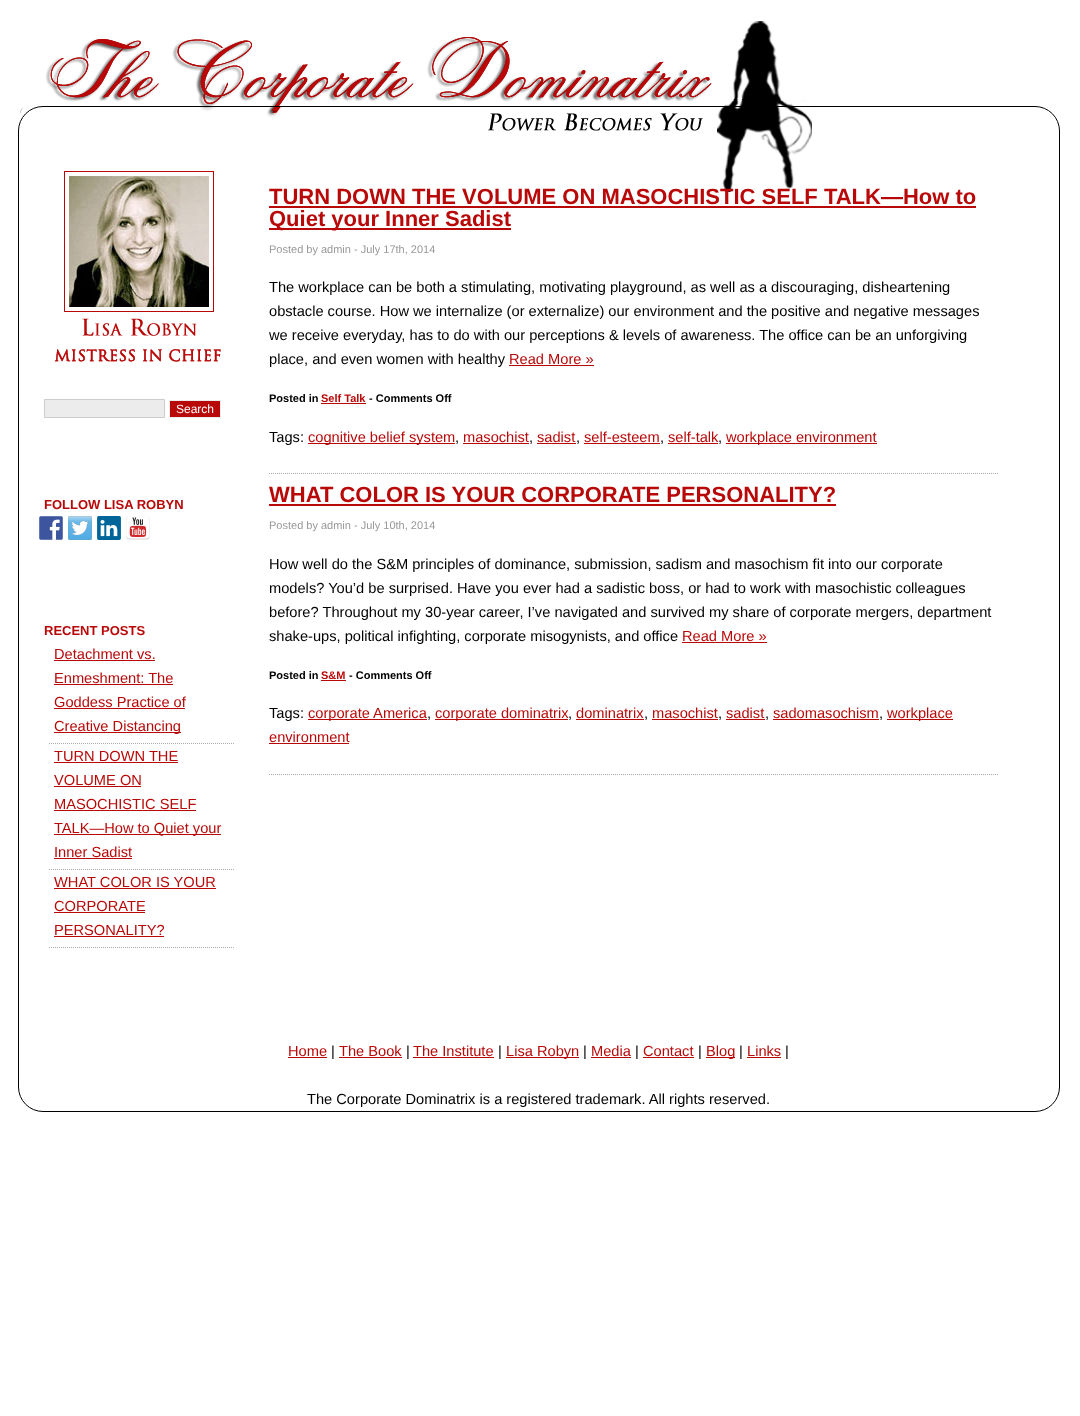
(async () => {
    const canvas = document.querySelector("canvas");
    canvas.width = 1080;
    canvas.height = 1416;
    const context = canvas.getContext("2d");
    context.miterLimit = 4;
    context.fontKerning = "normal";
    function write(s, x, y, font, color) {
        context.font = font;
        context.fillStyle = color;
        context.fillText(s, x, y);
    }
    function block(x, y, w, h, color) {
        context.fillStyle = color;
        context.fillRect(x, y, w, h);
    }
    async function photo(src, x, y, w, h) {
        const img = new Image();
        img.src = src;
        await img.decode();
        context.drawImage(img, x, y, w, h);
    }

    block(0, 0, 1080, 1416, "rgb(255, 255, 255)");
    await photo("media/1.png", 20, 21, 799, 171);
    context.beginPath();
    context.roundRect(18.5, 106.5, 1041, 1005, 24.5);
    context.strokeStyle = "rgb(0, 0, 0)";
    context.stroke();
    context.strokeStyle = "rgb(185, 8, 8)";
    context.strokeRect(64.5, 171.5, 149, 140);
    await photo("media/2.png", 69, 176, 140, 131);
    await photo("media/3.png", 54, 318, 167, 44);
    context.fillStyle = "rgb(236, 236, 236)";
    context.beginPath();
    context.rect(44.5, 399.5, 120, 18);
    context.fill();
    context.strokeStyle = "rgb(204, 204, 204)";
    context.stroke();
    context.fillStyle = "rgb(185, 8, 8)";
    context.beginPath();
    context.rect(169.5, 400.5, 51, 17);
    context.fill();
    context.strokeStyle = "rgb(236, 236, 236)";
    context.stroke();
    write("Search", 176, 413, "12px Liberation Sans", "rgb(255, 255, 255)");
    write("FOLLOW LISA ROBYN", 44, 509, "bold 13px Liberation Sans", "rgb(185, 8, 8)");
    await photo("media/4.png", 39, 516, 24, 24);
    await photo("media/5.png", 68, 516, 24, 24);
    await photo("media/6.png", 97, 516, 24, 24);
    await photo("media/7.png", 126, 516, 24, 24);
    write("RECENT POSTS", 44, 635, "bold 13px Liberation Sans", "rgb(185, 8, 8)");
    context.beginPath();
    context.moveTo(49, 743.5);
    context.lineTo(234, 743.5);
    context.strokeStyle = "rgb(170, 170, 170)";
    context.setLineDash([1, 1]);
    context.stroke();
    write("Detachment vs.", 54, 659, "14.65px Liberation Sans", "rgb(185, 8, 8)");
    block(54, 660, 101, 1, "rgb(185, 8, 8)");
    write("Enmeshment: The", 54, 683, "14.65px Liberation Sans", "rgb(185, 8, 8)");
    block(54, 684, 119, 1, "rgb(185, 8, 8)");
    write("Goddess Practice of", 54, 707, "14.65px Liberation Sans", "rgb(185, 8, 8)");
    block(54, 708, 131, 1, "rgb(185, 8, 8)");
    block(54, 732, 127, 1, "rgb(185, 8, 8)");
    write("Creative Distancing", 54, 731, "14.65px Liberation Sans", "rgb(185, 8, 8)");
    context.beginPath();
    context.moveTo(49, 869.5);
    context.lineTo(234, 869.5);
    context.stroke();
    write("TURN DOWN THE", 54, 761, "14.65px Liberation Sans", "rgb(185, 8, 8)");
    block(54, 762, 124, 1, "rgb(185, 8, 8)");
    write("VOLUME ON", 54, 785, "14.65px Liberation Sans", "rgb(185, 8, 8)");
    block(54, 786, 87, 1, "rgb(185, 8, 8)");
    write("MASOCHISTIC SELF", 54, 809, "14.65px Liberation Sans", "rgb(185, 8, 8)");
    block(54, 810, 142, 1, "rgb(185, 8, 8)");
    block(54, 834, 167, 1, "rgb(185, 8, 8)");
    write("TALK—How to Quiet your", 54, 833, "14.65px Liberation Sans", "rgb(185, 8, 8)");
    write("Inner Sadist", 54, 857, "14.65px Liberation Sans", "rgb(185, 8, 8)");
    block(54, 858, 78, 1, "rgb(185, 8, 8)");
    context.beginPath();
    context.moveTo(49, 947.5);
    context.lineTo(234, 947.5);
    context.stroke();
    write("WHAT COLOR IS YOUR", 54, 887, "14.65px Liberation Sans", "rgb(185, 8, 8)");
    block(54, 888, 162, 1, "rgb(185, 8, 8)");
    write("CORPORATE", 54, 911, "14.65px Liberation Sans", "rgb(185, 8, 8)");
    block(54, 912, 91, 1, "rgb(185, 8, 8)");
    write("PERSONALITY?", 54, 935, "14.65px Liberation Sans", "rgb(185, 8, 8)");
    block(54, 936, 110, 1, "rgb(185, 8, 8)");
    context.beginPath();
    context.moveTo(269, 473.5);
    context.lineTo(999, 473.5);
    context.stroke();
    write("TURN DOWN THE VOLUME ON MASOCHISTIC SELF TALK—How to", 269, 204, "bold 22px Liberation Sans", "rgb(185, 8, 8)");
    block(269, 206, 707, 2, "rgb(185, 8, 8)");
    block(269, 228, 242, 2, "rgb(185, 8, 8)");
    write("Quiet your Inner Sadist", 269, 226, "bold 22px Liberation Sans", "rgb(185, 8, 8)");
    write("Posted by admin - July 17th, 2014", 269, 253, "11px Liberation Sans", "rgb(153, 153, 153)");
    write("The workplace can be both a stimulating, motivating playground, as well as a discouraging, disheartening", 269, 292, "14.65px Liberation Sans", "rgb(0, 0, 0)");
    write("obstacle course. How we internalize (or externalize) our environment and the positive and negative messages", 269, 316, "14.65px Liberation Sans", "rgb(0, 0, 0)");
    write("we receive everyday, has to do with our perceptions & levels of awareness. The office can be an unforgiving", 269, 340, "14.65px Liberation Sans", "rgb(0, 0, 0)");
    write("place, and even women with healthy", 269, 364, "14.65px Liberation Sans", "rgb(0, 0, 0)");
    write("Read More »", 509, 364, "14.65px Liberation Sans", "rgb(185, 8, 8)");
    block(509, 365, 85, 1, "rgb(185, 8, 8)");
    write("Posted in", 269, 402, "bold 11px Liberation Sans", "rgb(0, 0, 0)");
    write("Self Talk", 321, 402, "bold 11px Liberation Sans", "rgb(185, 8, 8)");
    block(321, 403, 45, 1, "rgb(185, 8, 8)");
    write("- Comments Off", 369, 402, "bold 11px Liberation Sans", "rgb(0, 0, 0)");
    write("Tags:", 269, 442, "14.65px Liberation Sans", "rgb(0, 0, 0)");
    block(308, 443, 147, 1, "rgb(185, 8, 8)");
    write("cognitive belief system", 308, 442, "14.65px Liberation Sans", "rgb(185, 8, 8)");
    write(",", 455, 442, "14.65px Liberation Sans", "rgb(0, 0, 0)");
    write("masochist", 463, 442, "14.65px Liberation Sans", "rgb(185, 8, 8)");
    block(463, 443, 66, 1, "rgb(185, 8, 8)");
    write(",", 529, 442, "14.65px Liberation Sans", "rgb(0, 0, 0)");
    write("sadist", 537, 442, "14.65px Liberation Sans", "rgb(185, 8, 8)");
    block(537, 443, 39, 1, "rgb(185, 8, 8)");
    write(",", 576, 442, "14.65px Liberation Sans", "rgb(0, 0, 0)");
    write("self-esteem", 584, 442, "14.65px Liberation Sans", "rgb(185, 8, 8)");
    block(584, 443, 76, 1, "rgb(185, 8, 8)");
    write(",", 660, 442, "14.65px Liberation Sans", "rgb(0, 0, 0)");
    write("self-talk", 668, 442, "14.65px Liberation Sans", "rgb(185, 8, 8)");
    block(668, 443, 50, 1, "rgb(185, 8, 8)");
    write(",", 718, 442, "14.65px Liberation Sans", "rgb(0, 0, 0)");
    block(726, 443, 151, 1, "rgb(185, 8, 8)");
    write("workplace environment", 726, 442, "14.65px Liberation Sans", "rgb(185, 8, 8)");
    context.beginPath();
    context.moveTo(269, 774.5);
    context.lineTo(999, 774.5);
    context.stroke();
    write("WHAT COLOR IS YOUR CORPORATE PERSONALITY?", 269, 502, "bold 22px Liberation Sans", "rgb(185, 8, 8)");
    block(269, 504, 567, 2, "rgb(185, 8, 8)");
    write("Posted by admin - July 10th, 2014", 269, 529, "11px Liberation Sans", "rgb(153, 153, 153)");
    write("How well do the S&M principles of dominance, submission, sadism and masochism fit into our corporate", 269, 569, "14.65px Liberation Sans", "rgb(0, 0, 0)");
    write("models? You’d be surprised. Have you ever had a sadistic boss, or had to work with masochistic colleagues", 269, 593, "14.65px Liberation Sans", "rgb(0, 0, 0)");
    write("before? Throughout my 30-year career, I’ve navigated and survived my share of corporate mergers, department", 269, 617, "14.65px Liberation Sans", "rgb(0, 0, 0)");
    write("shake-ups, political infighting, corporate misogynists, and office", 269, 641, "14.65px Liberation Sans", "rgb(0, 0, 0)");
    write("Read More »", 682, 641, "14.65px Liberation Sans", "rgb(185, 8, 8)");
    block(682, 642, 85, 1, "rgb(185, 8, 8)");
    write("Posted in", 269, 679, "bold 11px Liberation Sans", "rgb(0, 0, 0)");
    write("S&M", 321, 679, "bold 11px Liberation Sans", "rgb(185, 8, 8)");
    block(321, 680, 25, 1, "rgb(185, 8, 8)");
    write("- Comments Off", 349, 679, "bold 11px Liberation Sans", "rgb(0, 0, 0)");
    write("Tags:", 269, 718, "14.65px Liberation Sans", "rgb(0, 0, 0)");
    block(308, 719, 119, 1, "rgb(185, 8, 8)");
    write("corporate America", 308, 718, "14.65px Liberation Sans", "rgb(185, 8, 8)");
    write(",", 427, 718, "14.65px Liberation Sans", "rgb(0, 0, 0)");
    block(435, 719, 133, 1, "rgb(185, 8, 8)");
    write("corporate dominatrix", 435, 718, "14.65px Liberation Sans", "rgb(185, 8, 8)");
    write(",", 568, 718, "14.65px Liberation Sans", "rgb(0, 0, 0)");
    write("dominatrix", 576, 718, "14.65px Liberation Sans", "rgb(185, 8, 8)");
    block(576, 719, 68, 1, "rgb(185, 8, 8)");
    write(",", 644, 718, "14.65px Liberation Sans", "rgb(0, 0, 0)");
    write("masochist", 652, 718, "14.65px Liberation Sans", "rgb(185, 8, 8)");
    block(652, 719, 66, 1, "rgb(185, 8, 8)");
    write(",", 718, 718, "14.65px Liberation Sans", "rgb(0, 0, 0)");
    write("sadist", 726, 718, "14.65px Liberation Sans", "rgb(185, 8, 8)");
    block(726, 719, 39, 1, "rgb(185, 8, 8)");
    write(",", 765, 718, "14.65px Liberation Sans", "rgb(0, 0, 0)");
    write("sadomasochism", 773, 718, "14.65px Liberation Sans", "rgb(185, 8, 8)");
    block(773, 719, 106, 1, "rgb(185, 8, 8)");
    write(",", 879, 718, "14.65px Liberation Sans", "rgb(0, 0, 0)");
    block(887, 719, 66, 1, "rgb(185, 8, 8)");
    write("workplace", 887, 718, "14.65px Liberation Sans", "rgb(185, 8, 8)");
    write("environment", 269, 742, "14.65px Liberation Sans", "rgb(185, 8, 8)");
    block(269, 743, 80, 1, "rgb(185, 8, 8)");
    write("Home", 288, 1056, "14.65px Liberation Sans", "rgb(185, 8, 8)");
    block(288, 1057, 39, 1, "rgb(185, 8, 8)");
    write("|", 331, 1056, "14.65px Liberation Sans", "rgb(0, 0, 0)");
    write("The Book", 339, 1056, "14.65px Liberation Sans", "rgb(185, 8, 8)");
    block(339, 1057, 63, 1, "rgb(185, 8, 8)");
    write("|", 406, 1056, "14.65px Liberation Sans", "rgb(0, 0, 0)");
    write("The Institute", 413, 1056, "14.65px Liberation Sans", "rgb(185, 8, 8)");
    block(413, 1057, 81, 1, "rgb(185, 8, 8)");
    write("|", 498, 1056, "14.65px Liberation Sans", "rgb(0, 0, 0)");
    block(506, 1057, 73, 1, "rgb(185, 8, 8)");
    write("Lisa Robyn", 506, 1056, "14.65px Liberation Sans", "rgb(185, 8, 8)");
    write("|", 583, 1056, "14.65px Liberation Sans", "rgb(0, 0, 0)");
    write("Media", 591, 1056, "14.65px Liberation Sans", "rgb(185, 8, 8)");
    block(591, 1057, 40, 1, "rgb(185, 8, 8)");
    write("|", 635, 1056, "14.65px Liberation Sans", "rgb(0, 0, 0)");
    write("Contact", 643, 1056, "14.65px Liberation Sans", "rgb(185, 8, 8)");
    block(643, 1057, 51, 1, "rgb(185, 8, 8)");
    write("|", 698, 1056, "14.65px Liberation Sans", "rgb(0, 0, 0)");
    block(706, 1057, 29, 1, "rgb(185, 8, 8)");
    write("Blog", 706, 1056, "14.65px Liberation Sans", "rgb(185, 8, 8)");
    write("|", 739, 1056, "14.65px Liberation Sans", "rgb(0, 0, 0)");
    write("Links", 747, 1056, "14.65px Liberation Sans", "rgb(185, 8, 8)");
    block(747, 1057, 34, 1, "rgb(185, 8, 8)");
    write("|", 785, 1056, "14.65px Liberation Sans", "rgb(0, 0, 0)");
    write("The Corporate Dominatrix is a registered trademark. All rights reserved.", 307, 1104, "14.65px Liberation Sans", "rgb(0, 0, 0)");
})();
